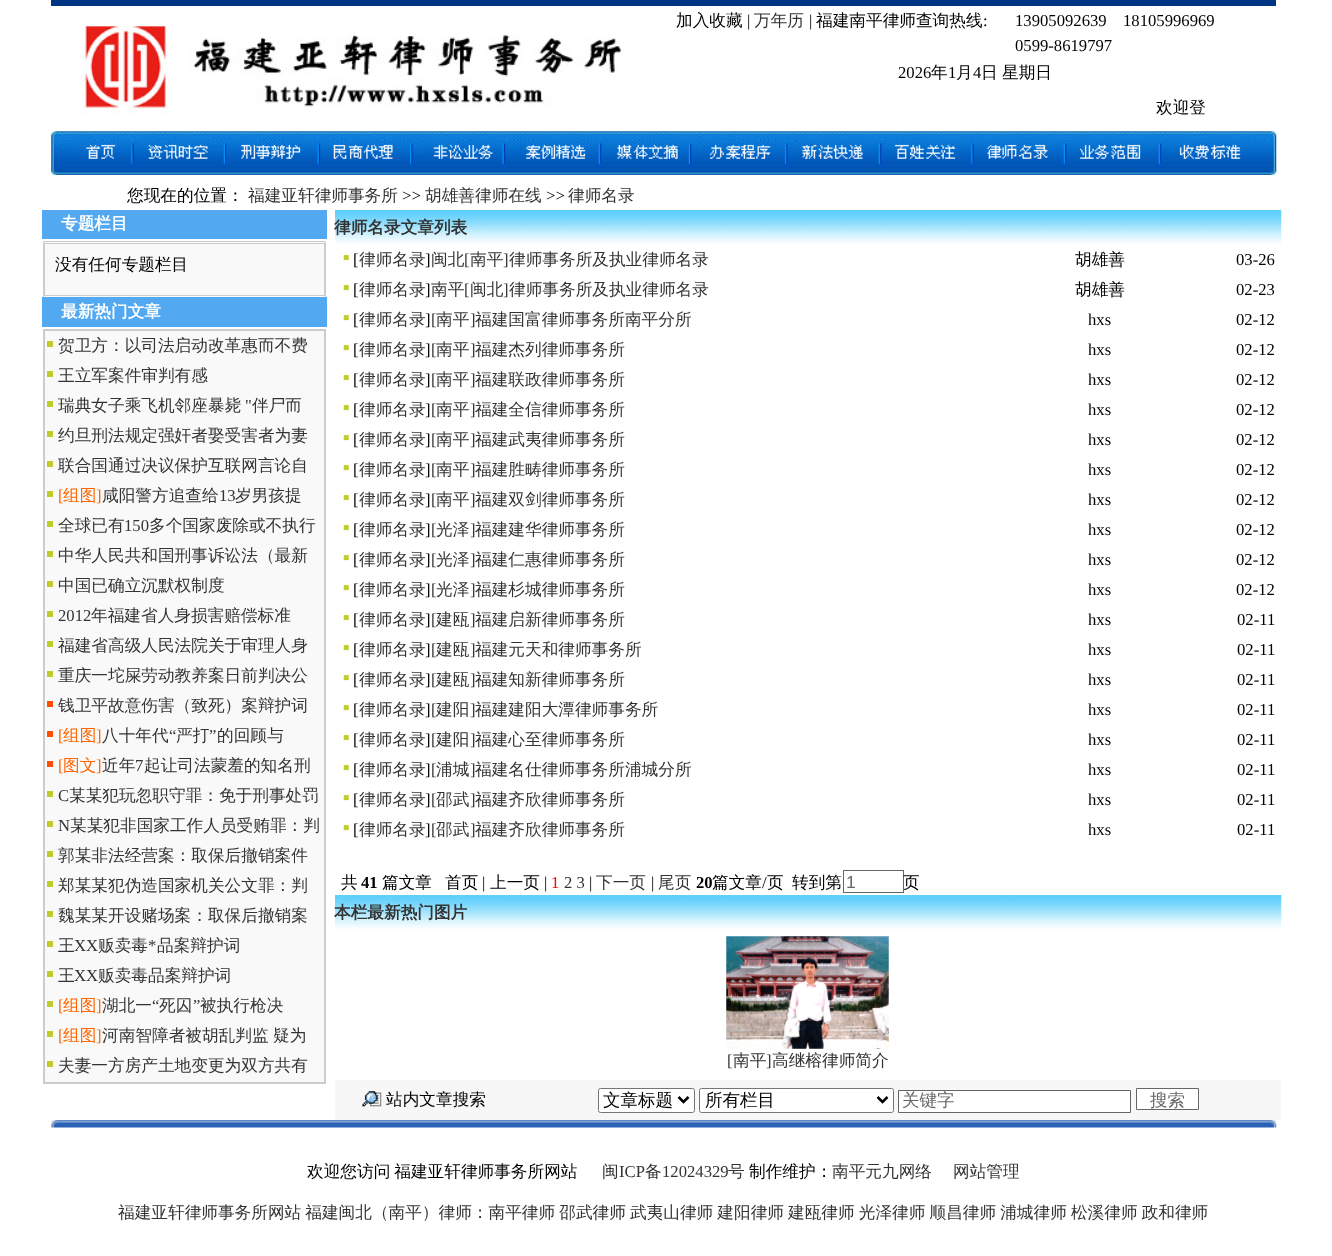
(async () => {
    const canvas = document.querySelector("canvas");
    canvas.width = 1332;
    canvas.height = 1256;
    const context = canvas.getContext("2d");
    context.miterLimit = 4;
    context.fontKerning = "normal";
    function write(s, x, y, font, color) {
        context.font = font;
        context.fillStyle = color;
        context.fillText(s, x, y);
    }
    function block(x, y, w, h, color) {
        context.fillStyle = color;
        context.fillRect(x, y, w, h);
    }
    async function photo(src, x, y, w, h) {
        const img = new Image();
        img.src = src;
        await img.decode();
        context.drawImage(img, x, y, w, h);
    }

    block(0, 0, 1332, 1256, "rgb(255, 255, 255)");
    block(51, 0, 1225, 6, "rgb(0, 53, 133)");
    await photo("media/1.png", 81, 26, 540, 90);
    write("加入收藏", 676, 26, "500 16.67px WenQuanYi Zen Hei", "rgb(0, 0, 0)");
    write("|", 747, 26, "16.67px Liberation Serif", "rgb(0, 0, 0)");
    write("万年历", 754, 26, "500 16.67px WenQuanYi Zen Hei", "rgb(51, 51, 51)");
    write("|", 809, 26, "16.67px Liberation Serif", "rgb(0, 0, 0)");
    write("福建南平律师查询热线", 816, 26, "500 16.67px WenQuanYi Zen Hei", "rgb(0, 0, 0)");
    write(":", 983, 26, "16.67px Liberation Serif", "rgb(0, 0, 0)");
    write("13905092639", 1015, 26, "16.67px Liberation Serif", "rgb(0, 0, 0)");
    write("18105996969", 1123, 26, "16.67px Liberation Serif", "rgb(0, 0, 0)");
    write("0599-8619797", 1015, 51, "16.67px Liberation Serif", "rgb(0, 0, 0)");
    write("2026", 898, 78, "16.67px Liberation Serif", "rgb(0, 0, 0)");
    write("年", 931, 78, "500 16.67px WenQuanYi Zen Hei", "rgb(0, 0, 0)");
    write("1", 948, 78, "16.67px Liberation Serif", "rgb(0, 0, 0)");
    write("月", 956, 78, "500 16.67px WenQuanYi Zen Hei", "rgb(0, 0, 0)");
    write("4", 973, 78, "16.67px Liberation Serif", "rgb(0, 0, 0)");
    write("日", 981, 78, "500 16.67px WenQuanYi Zen Hei", "rgb(0, 0, 0)");
    write("星期日", 1002, 78, "500 16.67px WenQuanYi Zen Hei", "rgb(0, 0, 0)");
    write("欢迎登", 1156, 113, "500 16.67px WenQuanYi Zen Hei", "rgb(0, 0, 0)");
    await photo("media/2.png", 51, 131, 1226, 44);
    write("您现在的位置：", 127, 201, "500 16.67px WenQuanYi Zen Hei", "rgb(0, 0, 0)");
    write("福建亚轩律师事务所", 248, 201, "500 16.67px WenQuanYi Zen Hei", "rgb(51, 51, 51)");
    write(">>", 402, 201, "16.67px Liberation Serif", "rgb(0, 0, 0)");
    write("胡雄善律师在线", 425, 201, "500 16.67px WenQuanYi Zen Hei", "rgb(51, 51, 51)");
    write(">>", 546, 201, "16.67px Liberation Serif", "rgb(0, 0, 0)");
    write("律师名录", 568, 201, "500 16.67px WenQuanYi Zen Hei", "rgb(51, 51, 51)");
    block(42, 210, 285, 29, "rgb(83, 169, 241)");
    write("专题栏目", 61, 229, "bold 16.67px WenQuanYi Zen Hei", "rgb(255, 255, 255)");
    context.fillStyle = "rgb(249, 249, 249)";
    context.beginPath();
    context.rect(43.5, 241.5, 282, 56);
    context.fill();
    context.strokeStyle = "rgb(204, 204, 204)";
    context.stroke();
    context.strokeRect(44.5, 243.5, 280, 52);
    write("没有任何专题栏目", 55, 270, "500 16.67px WenQuanYi Zen Hei", "rgb(0, 0, 0)");
    block(42, 297, 285, 30, "rgb(83, 169, 241)");
    write("最新热门文章", 61, 317, "bold 16.67px WenQuanYi Zen Hei", "rgb(255, 255, 255)");
    block(45, 331, 279, 751, "rgb(249, 249, 249)");
    context.strokeRect(43.5, 329.5, 282, 754);
    context.strokeRect(44.5, 330.5, 280, 752);
    block(47, 341, 6, 6, "rgb(191, 204, 42)");
    write("贺卫方：以司法启动改革惠而不费", 58, 351, "500 16.67px WenQuanYi Zen Hei", "rgb(51, 51, 51)");
    block(47, 371, 6, 6, "rgb(191, 204, 42)");
    write("王立军案件审判有感", 58, 381, "500 16.67px WenQuanYi Zen Hei", "rgb(51, 51, 51)");
    block(47, 401, 6, 6, "rgb(191, 204, 42)");
    write("瑞典女子乘飞机邻座暴毙", 58, 411, "500 16.67px WenQuanYi Zen Hei", "rgb(51, 51, 51)");
    write("\"", 245, 411, "16.67px Liberation Serif", "rgb(51, 51, 51)");
    write("伴尸而", 252, 411, "500 16.67px WenQuanYi Zen Hei", "rgb(51, 51, 51)");
    block(47, 431, 6, 6, "rgb(191, 204, 42)");
    write("约旦刑法规定强奸者娶受害者为妻", 58, 441, "500 16.67px WenQuanYi Zen Hei", "rgb(51, 51, 51)");
    block(47, 461, 6, 6, "rgb(191, 204, 42)");
    write("联合国通过决议保护互联网言论自", 58, 471, "500 16.67px WenQuanYi Zen Hei", "rgb(51, 51, 51)");
    block(47, 491, 6, 6, "rgb(191, 204, 42)");
    write("[", 58, 501, "16.67px Liberation Serif", "rgb(255, 102, 0)");
    write("组图", 63, 501, "500 16.67px WenQuanYi Zen Hei", "rgb(255, 102, 0)");
    write("]", 96, 501, "16.67px Liberation Serif", "rgb(255, 102, 0)");
    write("咸阳警方追查给", 102, 501, "500 16.67px WenQuanYi Zen Hei", "rgb(51, 51, 51)");
    write("13", 219, 501, "16.67px Liberation Serif", "rgb(51, 51, 51)");
    write("岁男孩提", 235, 501, "500 16.67px WenQuanYi Zen Hei", "rgb(51, 51, 51)");
    block(47, 521, 6, 6, "rgb(191, 204, 42)");
    write("全球已有", 58, 531, "500 16.67px WenQuanYi Zen Hei", "rgb(51, 51, 51)");
    write("150", 124, 531, "16.67px Liberation Serif", "rgb(51, 51, 51)");
    write("多个国家废除或不执行", 149, 531, "500 16.67px WenQuanYi Zen Hei", "rgb(51, 51, 51)");
    block(47, 551, 6, 6, "rgb(191, 204, 42)");
    write("中华人民共和国刑事诉讼法（最新", 58, 561, "500 16.67px WenQuanYi Zen Hei", "rgb(51, 51, 51)");
    block(47, 581, 6, 6, "rgb(191, 204, 42)");
    write("中国已确立沉默权制度", 58, 591, "500 16.67px WenQuanYi Zen Hei", "rgb(51, 51, 51)");
    block(47, 611, 6, 6, "rgb(191, 204, 42)");
    write("2012", 58, 621, "16.67px Liberation Serif", "rgb(51, 51, 51)");
    write("年福建省人身损害赔偿标准", 91, 621, "500 16.67px WenQuanYi Zen Hei", "rgb(51, 51, 51)");
    block(47, 641, 6, 6, "rgb(191, 204, 42)");
    write("福建省高级人民法院关于审理人身", 58, 651, "500 16.67px WenQuanYi Zen Hei", "rgb(51, 51, 51)");
    block(47, 671, 6, 6, "rgb(191, 204, 42)");
    write("重庆一坨屎劳动教养案日前判决公", 58, 681, "500 16.67px WenQuanYi Zen Hei", "rgb(51, 51, 51)");
    block(47, 701, 6, 6, "rgb(255, 79, 0)");
    write("钱卫平故意伤害（致死）案辩护词", 58, 711, "500 16.67px WenQuanYi Zen Hei", "rgb(51, 51, 51)");
    block(47, 731, 6, 6, "rgb(255, 79, 0)");
    write("[", 58, 741, "16.67px Liberation Serif", "rgb(255, 102, 0)");
    write("组图", 63, 741, "500 16.67px WenQuanYi Zen Hei", "rgb(255, 102, 0)");
    write("]", 96, 741, "16.67px Liberation Serif", "rgb(255, 102, 0)");
    write("八十年代", 102, 741, "500 16.67px WenQuanYi Zen Hei", "rgb(51, 51, 51)");
    write("“", 169, 741, "16.67px Liberation Serif", "rgb(51, 51, 51)");
    write("严打", 176, 741, "500 16.67px WenQuanYi Zen Hei", "rgb(51, 51, 51)");
    write("”", 209, 741, "16.67px Liberation Serif", "rgb(51, 51, 51)");
    write("的回顾与", 217, 741, "500 16.67px WenQuanYi Zen Hei", "rgb(51, 51, 51)");
    block(47, 761, 6, 6, "rgb(255, 79, 0)");
    write("[", 58, 771, "16.67px Liberation Serif", "rgb(255, 102, 0)");
    write("图文", 63, 771, "500 16.67px WenQuanYi Zen Hei", "rgb(255, 102, 0)");
    write("]", 96, 771, "16.67px Liberation Serif", "rgb(255, 102, 0)");
    write("近年", 102, 771, "500 16.67px WenQuanYi Zen Hei", "rgb(51, 51, 51)");
    write("7", 135, 771, "16.67px Liberation Serif", "rgb(51, 51, 51)");
    write("起让司法蒙羞的知名刑", 144, 771, "500 16.67px WenQuanYi Zen Hei", "rgb(51, 51, 51)");
    block(47, 791, 6, 6, "rgb(191, 204, 42)");
    write("C", 58, 801, "16.67px Liberation Serif", "rgb(51, 51, 51)");
    write("某某犯玩忽职守罪：免于刑事处罚", 69, 801, "500 16.67px WenQuanYi Zen Hei", "rgb(51, 51, 51)");
    block(47, 821, 6, 6, "rgb(191, 204, 42)");
    write("N", 58, 831, "16.67px Liberation Serif", "rgb(51, 51, 51)");
    write("某某犯非国家工作人员受贿罪：判", 70, 831, "500 16.67px WenQuanYi Zen Hei", "rgb(51, 51, 51)");
    block(47, 851, 6, 6, "rgb(191, 204, 42)");
    write("郭某非法经营案：取保后撤销案件", 58, 861, "500 16.67px WenQuanYi Zen Hei", "rgb(51, 51, 51)");
    block(47, 881, 6, 6, "rgb(191, 204, 42)");
    write("郑某某犯伪造国家机关公文罪：判", 58, 891, "500 16.67px WenQuanYi Zen Hei", "rgb(51, 51, 51)");
    block(47, 911, 6, 6, "rgb(191, 204, 42)");
    write("魏某某开设赌场案：取保后撤销案", 58, 921, "500 16.67px WenQuanYi Zen Hei", "rgb(51, 51, 51)");
    block(47, 941, 6, 6, "rgb(191, 204, 42)");
    write("王", 58, 951, "500 16.67px WenQuanYi Zen Hei", "rgb(51, 51, 51)");
    write("XX", 74, 951, "16.67px Liberation Serif", "rgb(51, 51, 51)");
    write("贩卖毒", 98, 951, "500 16.67px WenQuanYi Zen Hei", "rgb(51, 51, 51)");
    write("*", 148, 951, "16.67px Liberation Serif", "rgb(51, 51, 51)");
    write("品案辩护词", 157, 951, "500 16.67px WenQuanYi Zen Hei", "rgb(51, 51, 51)");
    block(47, 971, 6, 6, "rgb(191, 204, 42)");
    write("王", 58, 981, "500 16.67px WenQuanYi Zen Hei", "rgb(51, 51, 51)");
    write("XX", 74, 981, "16.67px Liberation Serif", "rgb(51, 51, 51)");
    write("贩卖毒品案辩护词", 98, 981, "500 16.67px WenQuanYi Zen Hei", "rgb(51, 51, 51)");
    block(47, 1001, 6, 6, "rgb(191, 204, 42)");
    write("[", 58, 1011, "16.67px Liberation Serif", "rgb(255, 102, 0)");
    write("组图", 63, 1011, "500 16.67px WenQuanYi Zen Hei", "rgb(255, 102, 0)");
    write("]", 96, 1011, "16.67px Liberation Serif", "rgb(255, 102, 0)");
    write("湖北一", 102, 1011, "500 16.67px WenQuanYi Zen Hei", "rgb(51, 51, 51)");
    write("“", 152, 1011, "16.67px Liberation Serif", "rgb(51, 51, 51)");
    write("死囚", 159, 1011, "500 16.67px WenQuanYi Zen Hei", "rgb(51, 51, 51)");
    write("”", 193, 1011, "16.67px Liberation Serif", "rgb(51, 51, 51)");
    write("被执行枪决", 200, 1011, "500 16.67px WenQuanYi Zen Hei", "rgb(51, 51, 51)");
    block(47, 1031, 6, 6, "rgb(191, 204, 42)");
    write("[", 58, 1041, "16.67px Liberation Serif", "rgb(255, 102, 0)");
    write("组图", 63, 1041, "500 16.67px WenQuanYi Zen Hei", "rgb(255, 102, 0)");
    write("]", 96, 1041, "16.67px Liberation Serif", "rgb(255, 102, 0)");
    write("河南智障者被胡乱判监", 102, 1041, "500 16.67px WenQuanYi Zen Hei", "rgb(51, 51, 51)");
    write("疑为", 273, 1041, "500 16.67px WenQuanYi Zen Hei", "rgb(51, 51, 51)");
    block(47, 1061, 6, 6, "rgb(191, 204, 42)");
    write("夫妻一方房产土地变更为双方共有", 58, 1071, "500 16.67px WenQuanYi Zen Hei", "rgb(51, 51, 51)");
    await photo("media/3.png", 335, 210, 947, 34);
    write("律师名录文章列表", 334, 233, "bold 16.67px WenQuanYi Zen Hei", "rgb(51, 51, 51)");
    await photo("media/4.png", 343, 254, 6, 7);
    write("[", 353, 265, "16.67px Liberation Serif", "rgb(0, 0, 0)");
    write("律师名录", 359, 265, "500 16.67px WenQuanYi Zen Hei", "rgb(51, 51, 51)");
    write("]", 425, 265, "16.67px Liberation Serif", "rgb(0, 0, 0)");
    write("闽北", 431, 265, "500 16.67px WenQuanYi Zen Hei", "rgb(51, 51, 51)");
    write("[", 464, 265, "16.67px Liberation Serif", "rgb(51, 51, 51)");
    write("南平", 470, 265, "500 16.67px WenQuanYi Zen Hei", "rgb(51, 51, 51)");
    write("]", 503, 265, "16.67px Liberation Serif", "rgb(51, 51, 51)");
    write("律师事务所及执业律师名录", 509, 265, "500 16.67px WenQuanYi Zen Hei", "rgb(51, 51, 51)");
    write("胡雄善", 1075, 265, "500 16.67px WenQuanYi Zen Hei", "rgb(0, 0, 0)");
    write("03-26", 1236, 265, "16.67px Liberation Serif", "rgb(0, 0, 0)");
    await photo("media/4.png", 343, 284, 6, 7);
    write("[", 353, 295, "16.67px Liberation Serif", "rgb(0, 0, 0)");
    write("律师名录", 359, 295, "500 16.67px WenQuanYi Zen Hei", "rgb(51, 51, 51)");
    write("]", 425, 295, "16.67px Liberation Serif", "rgb(0, 0, 0)");
    write("南平", 431, 295, "500 16.67px WenQuanYi Zen Hei", "rgb(51, 51, 51)");
    write("[", 464, 295, "16.67px Liberation Serif", "rgb(51, 51, 51)");
    write("闽北", 470, 295, "500 16.67px WenQuanYi Zen Hei", "rgb(51, 51, 51)");
    write("]", 503, 295, "16.67px Liberation Serif", "rgb(51, 51, 51)");
    write("律师事务所及执业律师名录", 509, 295, "500 16.67px WenQuanYi Zen Hei", "rgb(51, 51, 51)");
    write("胡雄善", 1075, 295, "500 16.67px WenQuanYi Zen Hei", "rgb(0, 0, 0)");
    write("02-23", 1236, 295, "16.67px Liberation Serif", "rgb(0, 0, 0)");
    await photo("media/4.png", 343, 314, 6, 7);
    write("[", 353, 325, "16.67px Liberation Serif", "rgb(0, 0, 0)");
    write("律师名录", 359, 325, "500 16.67px WenQuanYi Zen Hei", "rgb(51, 51, 51)");
    write("]", 425, 325, "16.67px Liberation Serif", "rgb(0, 0, 0)");
    write("[", 431, 325, "16.67px Liberation Serif", "rgb(51, 51, 51)");
    write("南平", 436, 325, "500 16.67px WenQuanYi Zen Hei", "rgb(51, 51, 51)");
    write("]", 470, 325, "16.67px Liberation Serif", "rgb(51, 51, 51)");
    write("福建国富律师事务所南平分所", 475, 325, "500 16.67px WenQuanYi Zen Hei", "rgb(51, 51, 51)");
    write("hxs", 1088, 325, "16.67px Liberation Serif", "rgb(0, 0, 0)");
    write("02-12", 1236, 325, "16.67px Liberation Serif", "rgb(0, 0, 0)");
    await photo("media/4.png", 343, 344, 6, 7);
    write("[", 353, 355, "16.67px Liberation Serif", "rgb(0, 0, 0)");
    write("律师名录", 359, 355, "500 16.67px WenQuanYi Zen Hei", "rgb(51, 51, 51)");
    write("]", 425, 355, "16.67px Liberation Serif", "rgb(0, 0, 0)");
    write("[", 431, 355, "16.67px Liberation Serif", "rgb(51, 51, 51)");
    write("南平", 436, 355, "500 16.67px WenQuanYi Zen Hei", "rgb(51, 51, 51)");
    write("]", 470, 355, "16.67px Liberation Serif", "rgb(51, 51, 51)");
    write("福建杰列律师事务所", 475, 355, "500 16.67px WenQuanYi Zen Hei", "rgb(51, 51, 51)");
    write("hxs", 1088, 355, "16.67px Liberation Serif", "rgb(0, 0, 0)");
    write("02-12", 1236, 355, "16.67px Liberation Serif", "rgb(0, 0, 0)");
    await photo("media/4.png", 343, 374, 6, 7);
    write("[", 353, 385, "16.67px Liberation Serif", "rgb(0, 0, 0)");
    write("律师名录", 359, 385, "500 16.67px WenQuanYi Zen Hei", "rgb(51, 51, 51)");
    write("]", 425, 385, "16.67px Liberation Serif", "rgb(0, 0, 0)");
    write("[", 431, 385, "16.67px Liberation Serif", "rgb(51, 51, 51)");
    write("南平", 436, 385, "500 16.67px WenQuanYi Zen Hei", "rgb(51, 51, 51)");
    write("]", 470, 385, "16.67px Liberation Serif", "rgb(51, 51, 51)");
    write("福建联政律师事务所", 475, 385, "500 16.67px WenQuanYi Zen Hei", "rgb(51, 51, 51)");
    write("hxs", 1088, 385, "16.67px Liberation Serif", "rgb(0, 0, 0)");
    write("02-12", 1236, 385, "16.67px Liberation Serif", "rgb(0, 0, 0)");
    await photo("media/4.png", 343, 404, 6, 7);
    write("[", 353, 415, "16.67px Liberation Serif", "rgb(0, 0, 0)");
    write("律师名录", 359, 415, "500 16.67px WenQuanYi Zen Hei", "rgb(51, 51, 51)");
    write("]", 425, 415, "16.67px Liberation Serif", "rgb(0, 0, 0)");
    write("[", 431, 415, "16.67px Liberation Serif", "rgb(51, 51, 51)");
    write("南平", 436, 415, "500 16.67px WenQuanYi Zen Hei", "rgb(51, 51, 51)");
    write("]", 470, 415, "16.67px Liberation Serif", "rgb(51, 51, 51)");
    write("福建全信律师事务所", 475, 415, "500 16.67px WenQuanYi Zen Hei", "rgb(51, 51, 51)");
    write("hxs", 1088, 415, "16.67px Liberation Serif", "rgb(0, 0, 0)");
    write("02-12", 1236, 415, "16.67px Liberation Serif", "rgb(0, 0, 0)");
    await photo("media/4.png", 343, 434, 6, 7);
    write("[", 353, 445, "16.67px Liberation Serif", "rgb(0, 0, 0)");
    write("律师名录", 359, 445, "500 16.67px WenQuanYi Zen Hei", "rgb(51, 51, 51)");
    write("]", 425, 445, "16.67px Liberation Serif", "rgb(0, 0, 0)");
    write("[", 431, 445, "16.67px Liberation Serif", "rgb(51, 51, 51)");
    write("南平", 436, 445, "500 16.67px WenQuanYi Zen Hei", "rgb(51, 51, 51)");
    write("]", 470, 445, "16.67px Liberation Serif", "rgb(51, 51, 51)");
    write("福建武夷律师事务所", 475, 445, "500 16.67px WenQuanYi Zen Hei", "rgb(51, 51, 51)");
    write("hxs", 1088, 445, "16.67px Liberation Serif", "rgb(0, 0, 0)");
    write("02-12", 1236, 445, "16.67px Liberation Serif", "rgb(0, 0, 0)");
    await photo("media/4.png", 343, 464, 6, 7);
    write("[", 353, 475, "16.67px Liberation Serif", "rgb(0, 0, 0)");
    write("律师名录", 359, 475, "500 16.67px WenQuanYi Zen Hei", "rgb(51, 51, 51)");
    write("]", 425, 475, "16.67px Liberation Serif", "rgb(0, 0, 0)");
    write("[", 431, 475, "16.67px Liberation Serif", "rgb(51, 51, 51)");
    write("南平", 436, 475, "500 16.67px WenQuanYi Zen Hei", "rgb(51, 51, 51)");
    write("]", 470, 475, "16.67px Liberation Serif", "rgb(51, 51, 51)");
    write("福建胜畴律师事务所", 475, 475, "500 16.67px WenQuanYi Zen Hei", "rgb(51, 51, 51)");
    write("hxs", 1088, 475, "16.67px Liberation Serif", "rgb(0, 0, 0)");
    write("02-12", 1236, 475, "16.67px Liberation Serif", "rgb(0, 0, 0)");
    await photo("media/4.png", 343, 494, 6, 7);
    write("[", 353, 505, "16.67px Liberation Serif", "rgb(0, 0, 0)");
    write("律师名录", 359, 505, "500 16.67px WenQuanYi Zen Hei", "rgb(51, 51, 51)");
    write("]", 425, 505, "16.67px Liberation Serif", "rgb(0, 0, 0)");
    write("[", 431, 505, "16.67px Liberation Serif", "rgb(51, 51, 51)");
    write("南平", 436, 505, "500 16.67px WenQuanYi Zen Hei", "rgb(51, 51, 51)");
    write("]", 470, 505, "16.67px Liberation Serif", "rgb(51, 51, 51)");
    write("福建双剑律师事务所", 475, 505, "500 16.67px WenQuanYi Zen Hei", "rgb(51, 51, 51)");
    write("hxs", 1088, 505, "16.67px Liberation Serif", "rgb(0, 0, 0)");
    write("02-12", 1236, 505, "16.67px Liberation Serif", "rgb(0, 0, 0)");
    await photo("media/4.png", 343, 524, 6, 7);
    write("[", 353, 535, "16.67px Liberation Serif", "rgb(0, 0, 0)");
    write("律师名录", 359, 535, "500 16.67px WenQuanYi Zen Hei", "rgb(51, 51, 51)");
    write("]", 425, 535, "16.67px Liberation Serif", "rgb(0, 0, 0)");
    write("[", 431, 535, "16.67px Liberation Serif", "rgb(51, 51, 51)");
    write("光泽", 436, 535, "500 16.67px WenQuanYi Zen Hei", "rgb(51, 51, 51)");
    write("]", 470, 535, "16.67px Liberation Serif", "rgb(51, 51, 51)");
    write("福建建华律师事务所", 475, 535, "500 16.67px WenQuanYi Zen Hei", "rgb(51, 51, 51)");
    write("hxs", 1088, 535, "16.67px Liberation Serif", "rgb(0, 0, 0)");
    write("02-12", 1236, 535, "16.67px Liberation Serif", "rgb(0, 0, 0)");
    await photo("media/4.png", 343, 554, 6, 7);
    write("[", 353, 565, "16.67px Liberation Serif", "rgb(0, 0, 0)");
    write("律师名录", 359, 565, "500 16.67px WenQuanYi Zen Hei", "rgb(51, 51, 51)");
    write("]", 425, 565, "16.67px Liberation Serif", "rgb(0, 0, 0)");
    write("[", 431, 565, "16.67px Liberation Serif", "rgb(51, 51, 51)");
    write("光泽", 436, 565, "500 16.67px WenQuanYi Zen Hei", "rgb(51, 51, 51)");
    write("]", 470, 565, "16.67px Liberation Serif", "rgb(51, 51, 51)");
    write("福建仁惠律师事务所", 475, 565, "500 16.67px WenQuanYi Zen Hei", "rgb(51, 51, 51)");
    write("hxs", 1088, 565, "16.67px Liberation Serif", "rgb(0, 0, 0)");
    write("02-12", 1236, 565, "16.67px Liberation Serif", "rgb(0, 0, 0)");
    await photo("media/4.png", 343, 584, 6, 7);
    write("[", 353, 595, "16.67px Liberation Serif", "rgb(0, 0, 0)");
    write("律师名录", 359, 595, "500 16.67px WenQuanYi Zen Hei", "rgb(51, 51, 51)");
    write("]", 425, 595, "16.67px Liberation Serif", "rgb(0, 0, 0)");
    write("[", 431, 595, "16.67px Liberation Serif", "rgb(51, 51, 51)");
    write("光泽", 436, 595, "500 16.67px WenQuanYi Zen Hei", "rgb(51, 51, 51)");
    write("]", 470, 595, "16.67px Liberation Serif", "rgb(51, 51, 51)");
    write("福建杉城律师事务所", 475, 595, "500 16.67px WenQuanYi Zen Hei", "rgb(51, 51, 51)");
    write("hxs", 1088, 595, "16.67px Liberation Serif", "rgb(0, 0, 0)");
    write("02-12", 1236, 595, "16.67px Liberation Serif", "rgb(0, 0, 0)");
    await photo("media/4.png", 343, 614, 6, 7);
    write("[", 353, 625, "16.67px Liberation Serif", "rgb(0, 0, 0)");
    write("律师名录", 359, 625, "500 16.67px WenQuanYi Zen Hei", "rgb(51, 51, 51)");
    write("]", 425, 625, "16.67px Liberation Serif", "rgb(0, 0, 0)");
    write("[", 431, 625, "16.67px Liberation Serif", "rgb(51, 51, 51)");
    write("建瓯", 436, 625, "500 16.67px WenQuanYi Zen Hei", "rgb(51, 51, 51)");
    write("]", 470, 625, "16.67px Liberation Serif", "rgb(51, 51, 51)");
    write("福建启新律师事务所", 475, 625, "500 16.67px WenQuanYi Zen Hei", "rgb(51, 51, 51)");
    write("hxs", 1088, 625, "16.67px Liberation Serif", "rgb(0, 0, 0)");
    write("02-11", 1237, 625, "16.67px Liberation Serif", "rgb(0, 0, 0)");
    await photo("media/4.png", 343, 644, 6, 7);
    write("[", 353, 655, "16.67px Liberation Serif", "rgb(0, 0, 0)");
    write("律师名录", 359, 655, "500 16.67px WenQuanYi Zen Hei", "rgb(51, 51, 51)");
    write("]", 425, 655, "16.67px Liberation Serif", "rgb(0, 0, 0)");
    write("[", 431, 655, "16.67px Liberation Serif", "rgb(51, 51, 51)");
    write("建瓯", 436, 655, "500 16.67px WenQuanYi Zen Hei", "rgb(51, 51, 51)");
    write("]", 470, 655, "16.67px Liberation Serif", "rgb(51, 51, 51)");
    write("福建元天和律师事务所", 475, 655, "500 16.67px WenQuanYi Zen Hei", "rgb(51, 51, 51)");
    write("hxs", 1088, 655, "16.67px Liberation Serif", "rgb(0, 0, 0)");
    write("02-11", 1237, 655, "16.67px Liberation Serif", "rgb(0, 0, 0)");
    await photo("media/4.png", 343, 674, 6, 7);
    write("[", 353, 685, "16.67px Liberation Serif", "rgb(0, 0, 0)");
    write("律师名录", 359, 685, "500 16.67px WenQuanYi Zen Hei", "rgb(51, 51, 51)");
    write("]", 425, 685, "16.67px Liberation Serif", "rgb(0, 0, 0)");
    write("[", 431, 685, "16.67px Liberation Serif", "rgb(51, 51, 51)");
    write("建瓯", 436, 685, "500 16.67px WenQuanYi Zen Hei", "rgb(51, 51, 51)");
    write("]", 470, 685, "16.67px Liberation Serif", "rgb(51, 51, 51)");
    write("福建知新律师事务所", 475, 685, "500 16.67px WenQuanYi Zen Hei", "rgb(51, 51, 51)");
    write("hxs", 1088, 685, "16.67px Liberation Serif", "rgb(0, 0, 0)");
    write("02-11", 1237, 685, "16.67px Liberation Serif", "rgb(0, 0, 0)");
    await photo("media/4.png", 343, 704, 6, 7);
    write("[", 353, 715, "16.67px Liberation Serif", "rgb(0, 0, 0)");
    write("律师名录", 359, 715, "500 16.67px WenQuanYi Zen Hei", "rgb(51, 51, 51)");
    write("]", 425, 715, "16.67px Liberation Serif", "rgb(0, 0, 0)");
    write("[", 431, 715, "16.67px Liberation Serif", "rgb(51, 51, 51)");
    write("建阳", 436, 715, "500 16.67px WenQuanYi Zen Hei", "rgb(51, 51, 51)");
    write("]", 470, 715, "16.67px Liberation Serif", "rgb(51, 51, 51)");
    write("福建建阳大潭律师事务所", 475, 715, "500 16.67px WenQuanYi Zen Hei", "rgb(51, 51, 51)");
    write("hxs", 1088, 715, "16.67px Liberation Serif", "rgb(0, 0, 0)");
    write("02-11", 1237, 715, "16.67px Liberation Serif", "rgb(0, 0, 0)");
    await photo("media/4.png", 343, 734, 6, 7);
    write("[", 353, 745, "16.67px Liberation Serif", "rgb(0, 0, 0)");
    write("律师名录", 359, 745, "500 16.67px WenQuanYi Zen Hei", "rgb(51, 51, 51)");
    write("]", 425, 745, "16.67px Liberation Serif", "rgb(0, 0, 0)");
    write("[", 431, 745, "16.67px Liberation Serif", "rgb(51, 51, 51)");
    write("建阳", 436, 745, "500 16.67px WenQuanYi Zen Hei", "rgb(51, 51, 51)");
    write("]", 470, 745, "16.67px Liberation Serif", "rgb(51, 51, 51)");
    write("福建心至律师事务所", 475, 745, "500 16.67px WenQuanYi Zen Hei", "rgb(51, 51, 51)");
    write("hxs", 1088, 745, "16.67px Liberation Serif", "rgb(0, 0, 0)");
    write("02-11", 1237, 745, "16.67px Liberation Serif", "rgb(0, 0, 0)");
    await photo("media/4.png", 343, 764, 6, 7);
    write("[", 353, 775, "16.67px Liberation Serif", "rgb(0, 0, 0)");
    write("律师名录", 359, 775, "500 16.67px WenQuanYi Zen Hei", "rgb(51, 51, 51)");
    write("]", 425, 775, "16.67px Liberation Serif", "rgb(0, 0, 0)");
    write("[", 431, 775, "16.67px Liberation Serif", "rgb(51, 51, 51)");
    write("浦城", 436, 775, "500 16.67px WenQuanYi Zen Hei", "rgb(51, 51, 51)");
    write("]", 470, 775, "16.67px Liberation Serif", "rgb(51, 51, 51)");
    write("福建名仕律师事务所浦城分所", 475, 775, "500 16.67px WenQuanYi Zen Hei", "rgb(51, 51, 51)");
    write("hxs", 1088, 775, "16.67px Liberation Serif", "rgb(0, 0, 0)");
    write("02-11", 1237, 775, "16.67px Liberation Serif", "rgb(0, 0, 0)");
    await photo("media/4.png", 343, 794, 6, 7);
    write("[", 353, 805, "16.67px Liberation Serif", "rgb(0, 0, 0)");
    write("律师名录", 359, 805, "500 16.67px WenQuanYi Zen Hei", "rgb(51, 51, 51)");
    write("]", 425, 805, "16.67px Liberation Serif", "rgb(0, 0, 0)");
    write("[", 431, 805, "16.67px Liberation Serif", "rgb(51, 51, 51)");
    write("邵武", 436, 805, "500 16.67px WenQuanYi Zen Hei", "rgb(51, 51, 51)");
    write("]", 470, 805, "16.67px Liberation Serif", "rgb(51, 51, 51)");
    write("福建齐欣律师事务所", 475, 805, "500 16.67px WenQuanYi Zen Hei", "rgb(51, 51, 51)");
    write("hxs", 1088, 805, "16.67px Liberation Serif", "rgb(0, 0, 0)");
    write("02-11", 1237, 805, "16.67px Liberation Serif", "rgb(0, 0, 0)");
    await photo("media/4.png", 343, 824, 6, 7);
    write("[", 353, 835, "16.67px Liberation Serif", "rgb(0, 0, 0)");
    write("律师名录", 359, 835, "500 16.67px WenQuanYi Zen Hei", "rgb(51, 51, 51)");
    write("]", 425, 835, "16.67px Liberation Serif", "rgb(0, 0, 0)");
    write("[", 431, 835, "16.67px Liberation Serif", "rgb(51, 51, 51)");
    write("邵武", 436, 835, "500 16.67px WenQuanYi Zen Hei", "rgb(51, 51, 51)");
    write("]", 470, 835, "16.67px Liberation Serif", "rgb(51, 51, 51)");
    write("福建齐欣律师事务所", 475, 835, "500 16.67px WenQuanYi Zen Hei", "rgb(51, 51, 51)");
    write("hxs", 1088, 835, "16.67px Liberation Serif", "rgb(0, 0, 0)");
    write("02-11", 1237, 835, "16.67px Liberation Serif", "rgb(0, 0, 0)");
    write("共", 341, 888, "500 16.67px WenQuanYi Zen Hei", "rgb(0, 0, 0)");
    write("41", 361, 888, "bold 16.67px Liberation Serif", "rgb(0, 0, 0)");
    write("篇文章", 382, 888, "500 16.67px WenQuanYi Zen Hei", "rgb(0, 0, 0)");
    write("首页", 445, 888, "500 16.67px WenQuanYi Zen Hei", "rgb(0, 0, 0)");
    write("|", 482, 888, "16.67px Liberation Serif", "rgb(0, 0, 0)");
    write("上一页", 490, 888, "500 16.67px WenQuanYi Zen Hei", "rgb(0, 0, 0)");
    write("|", 544, 888, "16.67px Liberation Serif", "rgb(0, 0, 0)");
    write("1", 551, 888, "16.67px Liberation Serif", "rgb(255, 0, 0)");
    write("2 3", 564, 888, "16.67px Liberation Serif", "rgb(51, 51, 51)");
    write("|", 589, 888, "16.67px Liberation Serif", "rgb(0, 0, 0)");
    write("下一页", 596, 888, "500 16.67px WenQuanYi Zen Hei", "rgb(51, 51, 51)");
    write("|", 651, 888, "16.67px Liberation Serif", "rgb(0, 0, 0)");
    write("尾页", 658, 888, "500 16.67px WenQuanYi Zen Hei", "rgb(51, 51, 51)");
    write("20", 696, 888, "bold 16.67px Liberation Serif", "rgb(0, 0, 0)");
    write("篇文章", 712, 888, "500 16.67px WenQuanYi Zen Hei", "rgb(0, 0, 0)");
    write("/", 762, 888, "16.67px Liberation Serif", "rgb(0, 0, 0)");
    write("页", 767, 888, "500 16.67px WenQuanYi Zen Hei", "rgb(0, 0, 0)");
    write("转到第", 792, 888, "500 16.67px WenQuanYi Zen Hei", "rgb(0, 0, 0)");
    context.strokeStyle = "rgb(102, 102, 102)";
    context.strokeRect(843.5, 870.5, 60, 22);
    write("1", 846, 888, "17.5px Liberation Sans", "rgb(102, 102, 102)");
    write("页", 903, 888, "500 16.67px WenQuanYi Zen Hei", "rgb(0, 0, 0)");
    await photo("media/5.png", 335, 895, 947, 34);
    write("本栏最新热门图片", 334, 918, "bold 16.67px WenQuanYi Zen Hei", "rgb(51, 51, 51)");
    await photo("media/6.png", 726, 936, 163, 113);
    write("[", 727, 1066, "16.67px Liberation Serif", "rgb(51, 51, 51)");
    write("南平", 733, 1066, "500 16.67px WenQuanYi Zen Hei", "rgb(51, 51, 51)");
    write("]", 766, 1066, "16.67px Liberation Serif", "rgb(51, 51, 51)");
    write("高继榕律师简介", 772, 1066, "500 16.67px WenQuanYi Zen Hei", "rgb(51, 51, 51)");
    block(335, 1080, 946, 40, "rgb(247, 247, 247)");
    await photo("media/7.png", 362, 1091, 20, 16);
    write("站内文章搜索", 386, 1105, "500 16.67px WenQuanYi Zen Hei", "rgb(0, 0, 0)");
    context.fillStyle = "rgb(255, 255, 255)";
    context.beginPath();
    context.roundRect(598.5, 1088.5, 96, 24, 2);
    context.fill();
    context.strokeStyle = "rgb(118, 118, 118)";
    context.stroke();
    context.beginPath();
    context.moveTo(678.5, 1097);
    context.lineTo(683.5, 1102);
    context.lineTo(688.5, 1097);
    context.strokeStyle = "rgb(0, 0, 0)";
    context.lineWidth = 2.5;
    context.stroke();
    write("文章标题", 603, 1106, "500 17.5px WenQuanYi Zen Hei", "rgb(0, 0, 0)");
    context.fillStyle = "rgb(255, 255, 255)";
    context.beginPath();
    context.roundRect(699.5, 1088.5, 194, 24, 2);
    context.fill();
    context.strokeStyle = "rgb(118, 118, 118)";
    context.lineWidth = 1;
    context.stroke();
    context.beginPath();
    context.moveTo(877.5, 1097);
    context.lineTo(882.5, 1102);
    context.lineTo(887.5, 1097);
    context.strokeStyle = "rgb(0, 0, 0)";
    context.lineWidth = 2.5;
    context.stroke();
    write("所有栏目", 705, 1106, "500 17.5px WenQuanYi Zen Hei", "rgb(0, 0, 0)");
    context.fillStyle = "rgb(255, 255, 255)";
    context.beginPath();
    context.rect(898.5, 1090.5, 232, 22);
    context.fill();
    context.strokeStyle = "rgb(102, 102, 102)";
    context.lineWidth = 1;
    context.stroke();
    write("关键字", 902, 1106, "500 17.5px WenQuanYi Zen Hei", "rgb(102, 102, 102)");
    context.fillStyle = "rgb(255, 255, 255)";
    context.beginPath();
    context.rect(1136.5, 1088.5, 62, 21);
    context.fill();
    context.stroke();
    write("搜索", 1150, 1106, "500 17.5px WenQuanYi Zen Hei", "rgb(102, 102, 102)");
    await photo("media/8.png", 51, 1120, 1226, 8);
    context.wordSpacing = "-1px";
    write("欢迎您访问 福建亚轩律师事务所网站", 307, 1177, "500 16.67px WenQuanYi Zen Hei", "rgb(0, 0, 0)");
    context.wordSpacing = "0px";
    write("闽", 602, 1177, "500 16.67px WenQuanYi Zen Hei", "rgb(51, 51, 51)");
    write("ICP", 619, 1177, "16.67px Liberation Serif", "rgb(51, 51, 51)");
    write("备", 645, 1177, "500 16.67px WenQuanYi Zen Hei", "rgb(51, 51, 51)");
    write("12024329", 662, 1177, "16.67px Liberation Serif", "rgb(51, 51, 51)");
    write("号", 728, 1177, "500 16.67px WenQuanYi Zen Hei", "rgb(51, 51, 51)");
    write("制作维护：", 749, 1177, "500 16.67px WenQuanYi Zen Hei", "rgb(0, 0, 0)");
    write("南平元九网络", 832, 1177, "500 16.67px WenQuanYi Zen Hei", "rgb(51, 51, 51)");
    write("网站管理", 953, 1177, "500 16.67px WenQuanYi Zen Hei", "rgb(51, 51, 51)");
    context.wordSpacing = "-0.9px";
    write("福建亚轩律师事务所网站 福建闽北（南平）律师：南平律师 邵武律师 武夷山律师 建阳律师 建瓯律师 光泽律师 顺昌律师 浦城律师 松溪律师 政和律师", 118, 1218, "500 16.67px WenQuanYi Zen Hei", "rgb(51, 51, 51)");
})();
